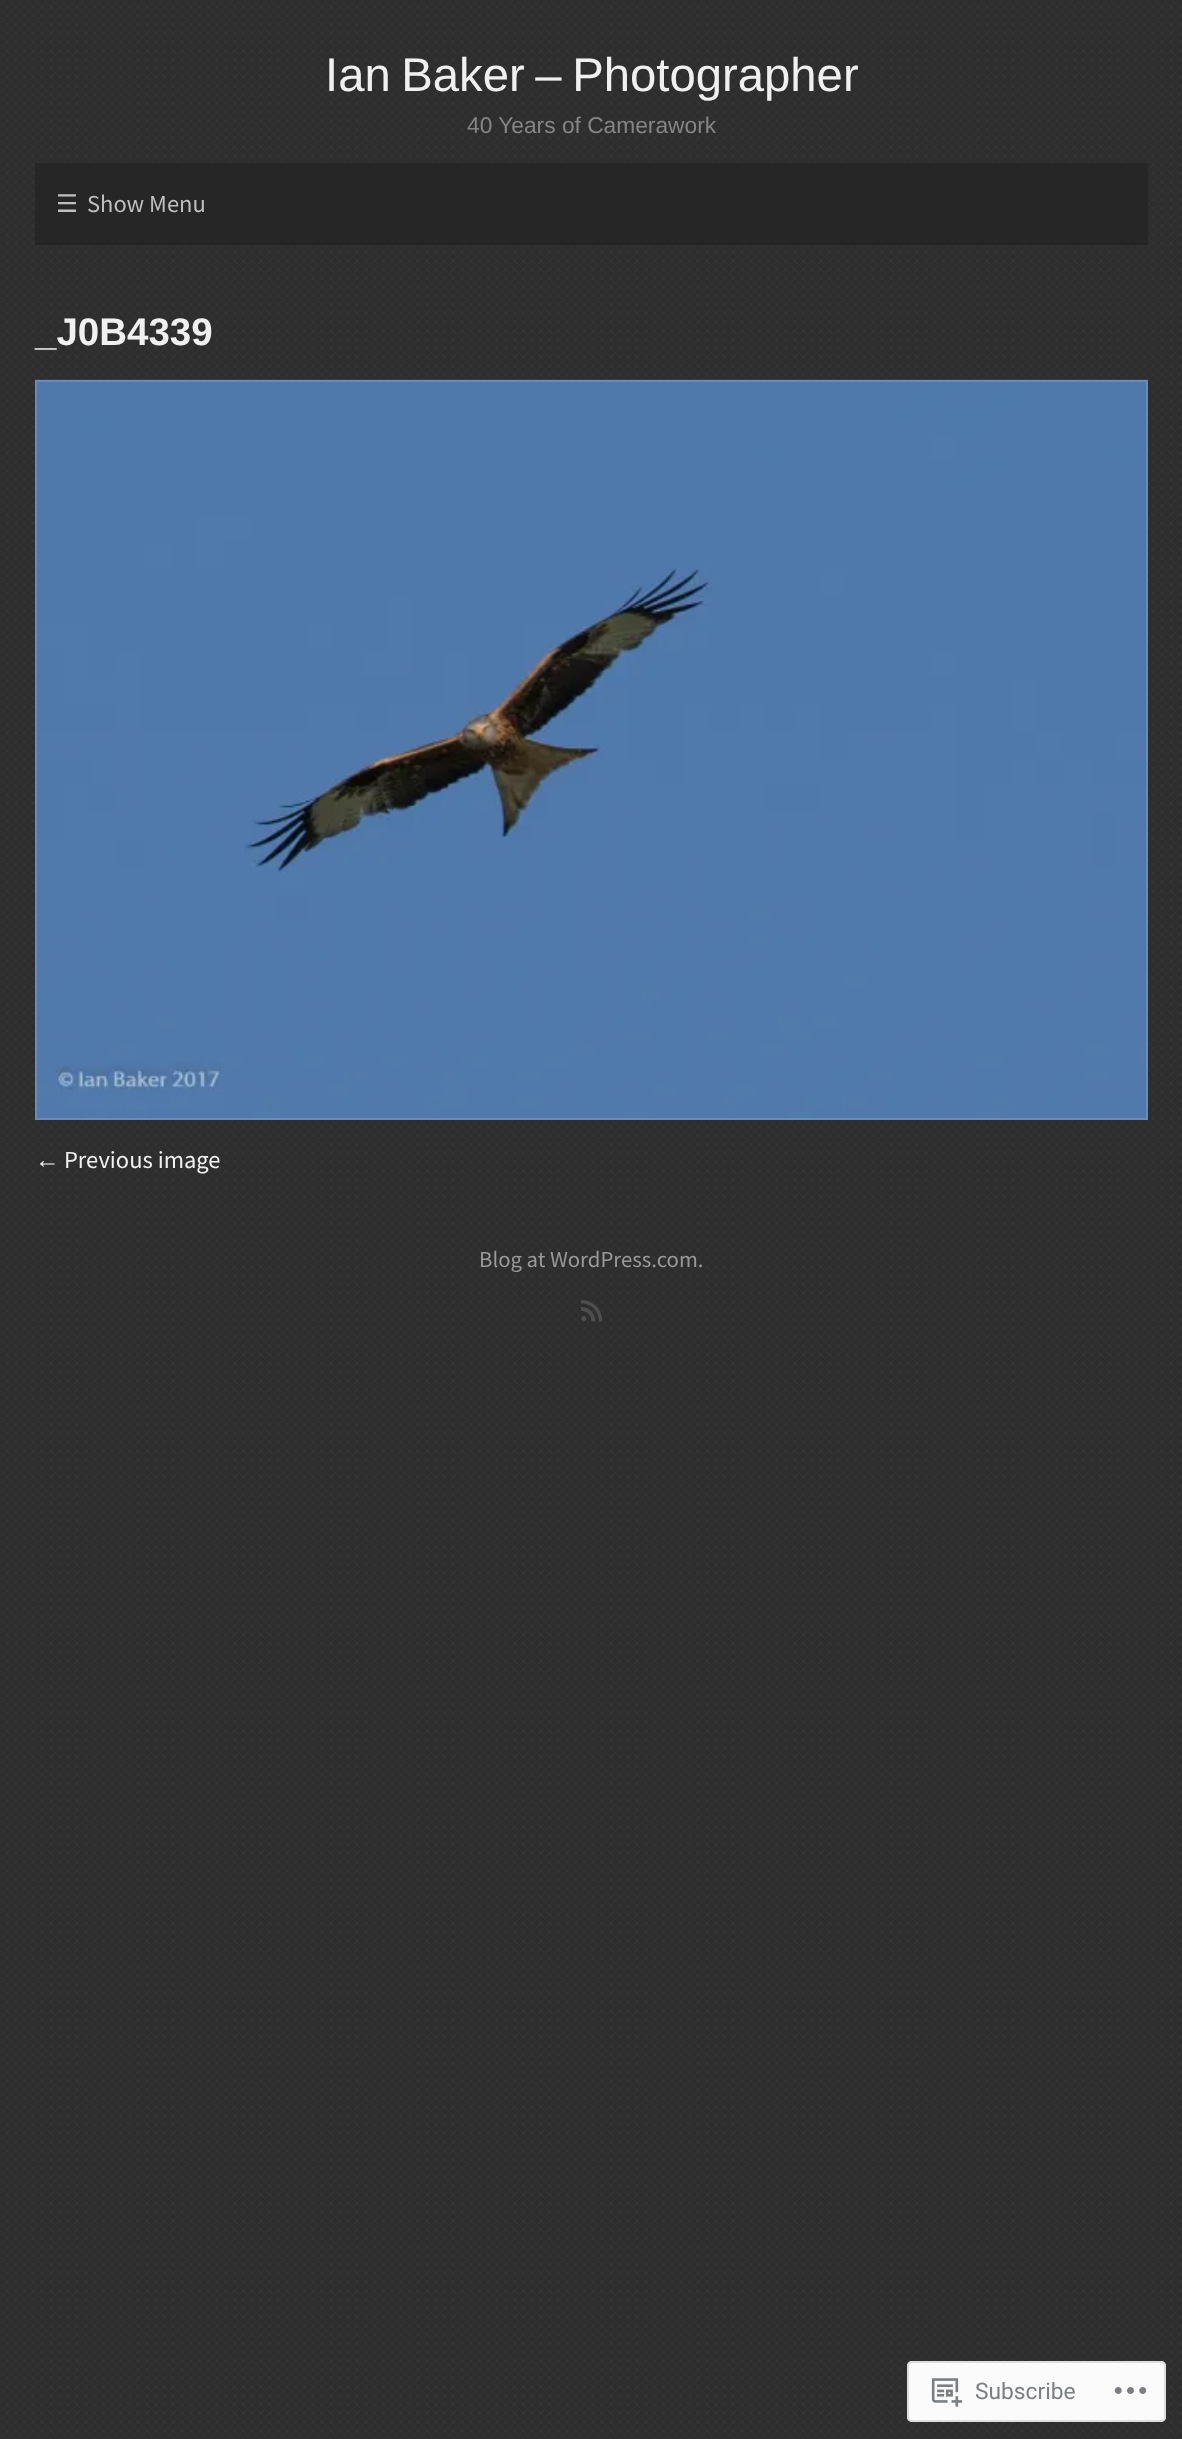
(async () => {
    const canvas = document.querySelector("canvas");
    canvas.width = 1182;
    canvas.height = 2439;
    const context = canvas.getContext("2d");
    context.miterLimit = 4;
    context.fontKerning = "normal";
    function write(s, x, y, font, color) {
        context.font = font;
        context.fillStyle = color;
        context.fillText(s, x, y);
    }
    function block(x, y, w, h, color) {
        context.fillStyle = color;
        context.fillRect(x, y, w, h);
    }
    function card(x, y, w, h, r, color) {
        context.fillStyle = color;
        context.beginPath();
        context.roundRect(x, y, w, h, r);
        context.fill();
    }
    async function photo(src, x, y, w, h) {
        const img = new Image();
        img.src = src;
        await img.decode();
        context.drawImage(img, x, y, w, h);
    }

    block(0, 0, 1182, 2439, "rgb(45, 45, 45)");
    await photo("media/1.png", 0, 0, 1182, 2439);
    context.wordSpacing = "-2.5px";
    write("Ian Baker – Photographer", 325, 91, "47.25px Liberation Sans", "rgb(240, 240, 240)");
    context.wordSpacing = "0px";
    write("40 Years of Camerawork", 467, 133, "22.75px Liberation Sans", "rgb(133, 133, 133)");
    block(35, 163, 1113, 80, "rgb(39, 38, 38)");
    block(35, 243, 1113, 2, "rgb(36, 35, 35)");
    write("☰", 56, 212, "24.5px DejaVu Sans", "rgb(191, 191, 191)");
    write("Show Menu", 87, 212, "24.5px Source Sans Pro", "rgb(191, 191, 191)");
    write("_J0B4339", 35, 345, "bold 38.5px Liberation Sans", "rgb(240, 240, 240)");
    await photo("media/2.png", 35, 379, 1113, 741);
    context.strokeStyle = "rgba(255, 255, 255, 0.14)";
    context.lineWidth = 2;
    context.strokeRect(36, 381, 1111, 738);
    write("←", 35, 1168, "24.5px Liberation Sans", "rgb(240, 240, 240)");
    write("Previous image", 64, 1168, "24.5px Source Sans Pro", "rgb(240, 240, 240)");
    write("Blog at WordPress.com.", 479, 1267, "22.75px Source Sans Pro", "rgb(153, 153, 153)");
    await photo("media/3.png", 581, 1300, 21, 22);
    card(907, 2361, 259, 61, 5, "rgba(255, 255, 255, 0.98)");
    context.beginPath();
    context.roundRect(908, 2362, 257, 59, 4);
    context.strokeStyle = "rgba(220, 220, 222, 0.98)";
    context.stroke();
    await photo("media/4.png", 931, 2378, 32, 29);
    write("Subscribe", 975, 2399, "22.75px Roboto", "rgb(123, 127, 132)");
    await photo("media/5.png", 1114, 2387, 33, 7);
})();
